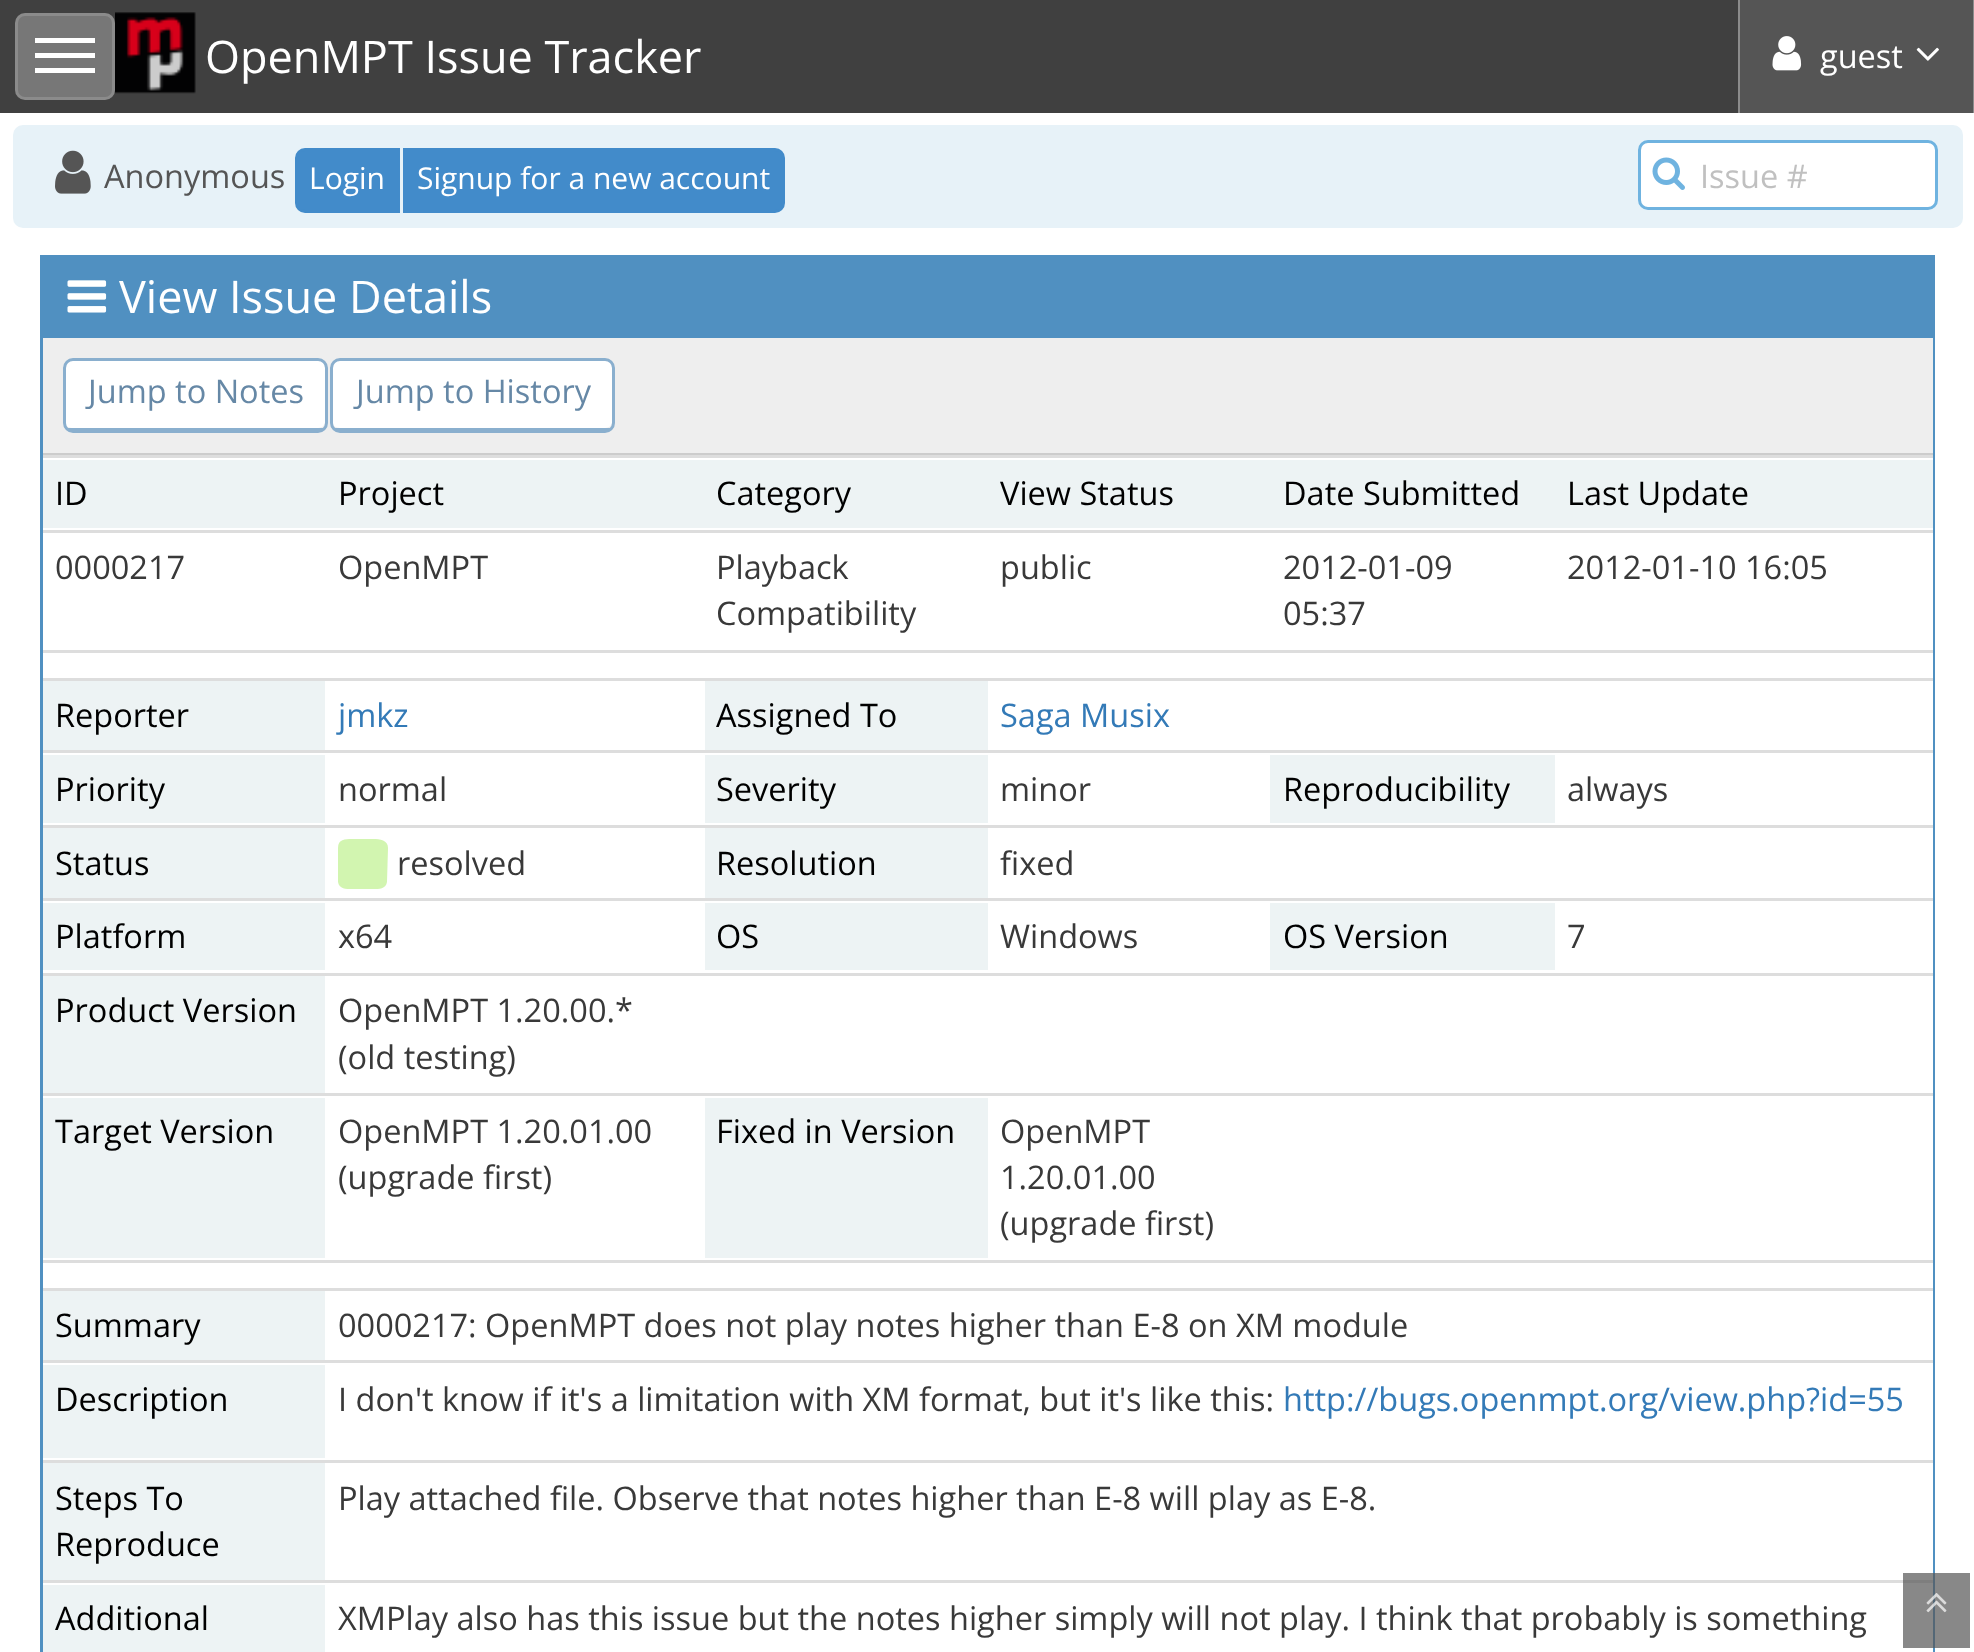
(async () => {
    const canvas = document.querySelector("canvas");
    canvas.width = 1974;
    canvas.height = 1652;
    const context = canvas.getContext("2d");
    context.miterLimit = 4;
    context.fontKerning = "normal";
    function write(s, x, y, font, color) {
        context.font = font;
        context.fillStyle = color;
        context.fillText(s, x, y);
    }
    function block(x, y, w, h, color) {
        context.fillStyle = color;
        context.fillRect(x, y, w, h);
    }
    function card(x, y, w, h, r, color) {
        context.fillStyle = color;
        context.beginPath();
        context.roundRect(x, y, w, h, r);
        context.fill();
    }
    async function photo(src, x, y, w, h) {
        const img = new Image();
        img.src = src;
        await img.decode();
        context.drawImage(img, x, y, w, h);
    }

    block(0, 0, 1974, 1652, "rgb(255, 255, 255)");
    block(0, 0, 1738, 113, "rgb(64, 64, 64)");
    card(15, 13, 100, 87, 10, "rgb(119, 119, 119)");
    context.beginPath();
    context.roundRect(16.5, 14.5, 97, 84, 8.5);
    context.strokeStyle = "rgba(255, 255, 255, 0.15)";
    context.lineWidth = 3;
    context.stroke();
    block(35, 38, 60, 5, "rgb(255, 255, 255)");
    block(35, 53, 60, 5, "rgb(255, 255, 255)");
    block(35, 68, 60, 5, "rgb(255, 255, 255)");
    await photo("media/1.png", 115, 12, 81, 82);
    write("OpenMPT Issue Tracker", 205, 73, "45px Open Sans", "rgb(255, 255, 255)");
    block(1973, 0, 1, 113, "rgb(140, 140, 140)");
    block(1738, 0, 2, 113, "rgb(140, 140, 140)");
    block(1740, 0, 233, 113, "rgb(85, 85, 85)");
    await photo("media/2.png", 1772, 36, 30, 35);
    write("guest", 1820, 68, "32.5px Open Sans", "rgb(255, 255, 255)");
    await photo("media/3.png", 1916, 47, 23, 14);
    card(13, 125, 1950, 103, 10, "rgb(231, 242, 248)");
    await photo("media/4.png", 55, 150, 36, 44);
    write("Anonymous", 104, 188, "32.5px Open Sans", "rgb(85, 85, 85)");
    context.fillStyle = "rgb(66, 139, 202)";
    context.beginPath();
    context.roundRect(296.5, 149.5, 102, 62, [8.5, 0, 0, 8.5]);
    context.fill();
    context.strokeStyle = "rgb(66, 139, 202)";
    context.stroke();
    write("Login", 309, 189, "30px Open Sans", "rgb(255, 255, 255)");
    context.fillStyle = "rgb(66, 139, 202)";
    context.beginPath();
    context.roundRect(404.5, 149.5, 379, 62, [0, 8.5, 8.5, 0]);
    context.fill();
    context.stroke();
    write("Signup for a new account", 417, 189, "30px Open Sans", "rgb(255, 255, 255)");
    context.beginPath();
    context.roundRect(1639.5, 141.5, 297, 67, 8.5);
    context.fill();
    context.strokeStyle = "rgb(111, 179, 224)";
    context.stroke();
    await photo("media/5.png", 1652, 157, 33, 33);
    write("Issue #", 1700, 188, "32.5px Open Sans", "rgb(192, 192, 192)");
    context.strokeStyle = "rgb(80, 144, 193)";
    context.strokeRect(41.5, 256.5, 1892, 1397);
    block(43, 258, 1889, 80, "rgb(80, 144, 193)");
    await photo("media/6.png", 67, 280, 40, 33);
    write("View Issue Details", 119, 313, "45px Open Sans", "rgb(255, 255, 255)");
    block(43, 338, 1890, 115, "rgb(238, 238, 238)");
    block(43, 453, 1890, 2, "rgb(204, 204, 204)");
    context.fillStyle = "rgb(255, 255, 255)";
    context.beginPath();
    context.moveTo(72, 360);
    context.lineTo(318, 360);
    context.bezierCurveTo(322, 360, 325, 363, 325, 368);
    context.lineTo(325, 422);
    context.bezierCurveTo(325, 425, 322, 428, 318, 428);
    context.lineTo(72, 428);
    context.bezierCurveTo(68, 428, 65, 425, 65, 422);
    context.lineTo(65, 368);
    context.bezierCurveTo(65, 363, 68, 360, 72, 360);
    context.closePath();
    context.fill();
    context.beginPath();
    context.roundRect(64.5, 359.5, 262, 72, 8.5);
    context.strokeStyle = "rgb(138, 175, 206)";
    context.stroke();
    block(68, 428, 255, 2, "rgb(138, 175, 206)");
    write("Jump to Notes", 88, 403, "32.5px Open Sans", "rgb(102, 136, 166)");
    context.fillStyle = "rgb(255, 255, 255)";
    context.beginPath();
    context.moveTo(340, 360);
    context.lineTo(605, 360);
    context.bezierCurveTo(609, 360, 612, 363, 612, 368);
    context.lineTo(612, 422);
    context.bezierCurveTo(612, 425, 609, 428, 605, 428);
    context.lineTo(340, 428);
    context.bezierCurveTo(336, 428, 332, 425, 332, 422);
    context.lineTo(332, 368);
    context.bezierCurveTo(332, 363, 336, 360, 340, 360);
    context.closePath();
    context.fill();
    context.beginPath();
    context.roundRect(331.5, 359.5, 282, 72, 8.5);
    context.stroke();
    block(335, 428, 275, 2, "rgb(138, 175, 206)");
    write("Jump to History", 356, 403, "32.5px Open Sans", "rgb(102, 136, 166)");
    block(1932, 458, 1, 1194, "rgb(255, 255, 255)");
    block(43, 460, 1890, 68, "rgb(237, 243, 244)");
    write("ID", 55, 505, "32.5px Open Sans", "rgb(0, 0, 0)");
    write("Project", 338, 505, "32.5px Open Sans", "rgb(0, 0, 0)");
    write("Category", 716, 505, "32.5px Open Sans", "rgb(0, 0, 0)");
    write("View Status", 1000, 505, "32.5px Open Sans", "rgb(0, 0, 0)");
    write("Date Submitted", 1283, 505, "32.5px Open Sans", "rgb(0, 0, 0)");
    block(43, 455, 1890, 3, "rgb(221, 221, 221)");
    write("Last Update", 1567, 505, "32.5px Open Sans", "rgb(0, 0, 0)");
    write("0000217", 55, 579, "32.5px Open Sans", "rgb(57, 57, 57)");
    write("OpenMPT", 338, 579, "32.5px Open Sans", "rgb(57, 57, 57)");
    write("Playback", 716, 579, "32.5px Open Sans", "rgb(57, 57, 57)");
    write("Compatibility", 716, 625, "32.5px Open Sans", "rgb(57, 57, 57)");
    write("public", 1000, 579, "32.5px Open Sans", "rgb(57, 57, 57)");
    write("2012-01-09", 1283, 579, "32.5px Open Sans", "rgb(57, 57, 57)");
    write("05:37", 1283, 625, "32.5px Open Sans", "rgb(57, 57, 57)");
    block(43, 530, 1890, 3, "rgb(221, 221, 221)");
    write("2012-01-10 16:05", 1567, 579, "32.5px Open Sans", "rgb(57, 57, 57)");
    block(43, 650, 1890, 3, "rgb(221, 221, 221)");
    block(43, 678, 1890, 3, "rgb(221, 221, 221)");
    block(43, 681, 282, 69, "rgb(237, 243, 244)");
    write("Reporter", 55, 727, "32.5px Open Sans", "rgb(0, 0, 0)");
    write("jmkz", 338, 727, "32.5px Open Sans", "rgb(51, 122, 183)");
    block(705, 681, 283, 69, "rgb(237, 243, 244)");
    write("Assigned To", 716, 727, "32.5px Open Sans", "rgb(0, 0, 0)");
    write("Saga Musix", 1000, 727, "32.5px Open Sans", "rgb(51, 122, 183)");
    block(43, 755, 282, 68, "rgb(237, 243, 244)");
    write("Priority", 55, 801, "32.5px Open Sans", "rgb(0, 0, 0)");
    write("normal", 338, 801, "32.5px Open Sans", "rgb(57, 57, 57)");
    block(705, 755, 283, 68, "rgb(237, 243, 244)");
    write("Severity", 716, 801, "32.5px Open Sans", "rgb(0, 0, 0)");
    write("minor", 1000, 801, "32.5px Open Sans", "rgb(57, 57, 57)");
    block(1270, 755, 285, 68, "rgb(237, 243, 244)");
    write("Reproducibility", 1283, 801, "32.5px Open Sans", "rgb(0, 0, 0)");
    block(43, 750, 1890, 3, "rgb(221, 221, 221)");
    write("always", 1567, 801, "32.5px Open Sans", "rgb(57, 57, 57)");
    block(43, 825, 1890, 3, "rgb(221, 221, 221)");
    block(43, 828, 282, 70, "rgb(237, 243, 244)");
    write("Status", 55, 875, "32.5px Open Sans", "rgb(0, 0, 0)");
    context.fillStyle = "rgb(210, 245, 176)";
    context.beginPath();
    context.moveTo(388, 848);
    context.lineTo(387, 882);
    context.bezierCurveTo(386, 889, 379, 889, 373, 889);
    context.lineTo(352, 889);
    context.bezierCurveTo(346, 889, 339, 889, 338, 882);
    context.lineTo(338, 848);
    context.bezierCurveTo(338, 839, 345, 839, 352, 839);
    context.lineTo(373, 839);
    context.bezierCurveTo(380, 839, 388, 840, 388, 848);
    context.closePath();
    context.fill();
    write("resolved", 397, 875, "32.5px Open Sans", "rgb(57, 57, 57)");
    block(705, 828, 283, 70, "rgb(237, 243, 244)");
    write("Resolution", 716, 875, "32.5px Open Sans", "rgb(0, 0, 0)");
    write("fixed", 1000, 875, "32.5px Open Sans", "rgb(57, 57, 57)");
    block(43, 903, 282, 67, "rgb(237, 243, 244)");
    write("Platform", 55, 948, "32.5px Open Sans", "rgb(0, 0, 0)");
    write("x64", 338, 948, "32.5px Open Sans", "rgb(57, 57, 57)");
    block(705, 903, 283, 67, "rgb(237, 243, 244)");
    write("OS", 716, 948, "32.5px Open Sans", "rgb(0, 0, 0)");
    write("Windows", 1000, 948, "32.5px Open Sans", "rgb(57, 57, 57)");
    block(1270, 903, 285, 67, "rgb(237, 243, 244)");
    write("OS Version", 1283, 948, "32.5px Open Sans", "rgb(0, 0, 0)");
    block(43, 898, 1890, 3, "rgb(221, 221, 221)");
    write("7", 1567, 948, "32.5px Open Sans", "rgb(57, 57, 57)");
    block(43, 973, 1890, 3, "rgb(221, 221, 221)");
    block(43, 976, 282, 117, "rgb(237, 243, 244)");
    write("Product Version", 55, 1022, "32.5px Open Sans", "rgb(0, 0, 0)");
    write("OpenMPT 1.20.00.*", 338, 1022, "32.5px Open Sans", "rgb(57, 57, 57)");
    write("(old testing)", 338, 1069, "32.5px Open Sans", "rgb(57, 57, 57)");
    block(43, 1093, 1890, 3, "rgb(221, 221, 221)");
    block(43, 1098, 282, 160, "rgb(237, 243, 244)");
    write("Target Version", 55, 1143, "32.5px Open Sans", "rgb(0, 0, 0)");
    write("OpenMPT 1.20.01.00", 338, 1143, "32.5px Open Sans", "rgb(57, 57, 57)");
    write("(upgrade first)", 338, 1189, "32.5px Open Sans", "rgb(57, 57, 57)");
    block(705, 1098, 283, 160, "rgb(237, 243, 244)");
    write("Fixed in Version", 716, 1143, "32.5px Open Sans", "rgb(0, 0, 0)");
    write("OpenMPT", 1000, 1143, "32.5px Open Sans", "rgb(57, 57, 57)");
    write("1.20.01.00", 1000, 1189, "32.5px Open Sans", "rgb(57, 57, 57)");
    write("(upgrade first)", 1000, 1235, "32.5px Open Sans", "rgb(57, 57, 57)");
    block(43, 1260, 1890, 3, "rgb(221, 221, 221)");
    block(43, 1291, 282, 69, "rgb(237, 243, 244)");
    write("Summary", 55, 1337, "32.5px Open Sans", "rgb(0, 0, 0)");
    block(43, 1288, 1890, 3, "rgb(221, 221, 221)");
    write("0000217: OpenMPT does not play notes higher than E-8 on XM module", 338, 1337, "32.5px Open Sans", "rgb(57, 57, 57)");
    block(43, 1365, 282, 93, "rgb(237, 243, 244)");
    write("Description", 55, 1411, "32.5px Open Sans", "rgb(0, 0, 0)");
    block(43, 1360, 1890, 3, "rgb(221, 221, 221)");
    write("I don't know if it's a limitation with XM format, but it's like this:", 338, 1411, "32.5px Open Sans", "rgb(57, 57, 57)");
    write("http://bugs.openmpt.org/view.php?id=55", 1283, 1411, "32.5px Open Sans", "rgb(51, 122, 183)");
    block(43, 1463, 282, 117, "rgb(237, 243, 244)");
    write("Steps To", 55, 1510, "32.5px Open Sans", "rgb(0, 0, 0)");
    write("Reproduce", 55, 1556, "32.5px Open Sans", "rgb(0, 0, 0)");
    block(43, 1460, 1890, 3, "rgb(221, 221, 221)");
    write("Play attached file. Observe that notes higher than E-8 will play as E-8.", 338, 1510, "32.5px Open Sans", "rgb(57, 57, 57)");
    block(43, 1585, 282, 67, "rgb(237, 243, 244)");
    write("Additional", 55, 1630, "32.5px Open Sans", "rgb(0, 0, 0)");
    block(43, 1580, 1890, 3, "rgb(221, 221, 221)");
    write("XMPlay also has this issue but the notes higher simply will not play. I think that probably is something", 338, 1630, "32.5px Open Sans", "rgb(57, 57, 57)");
    block(1903, 1573, 67, 75, "rgba(85, 85, 85, 0.7)");
    await photo("media/7.png", 1926, 1593, 21, 20);
})();
